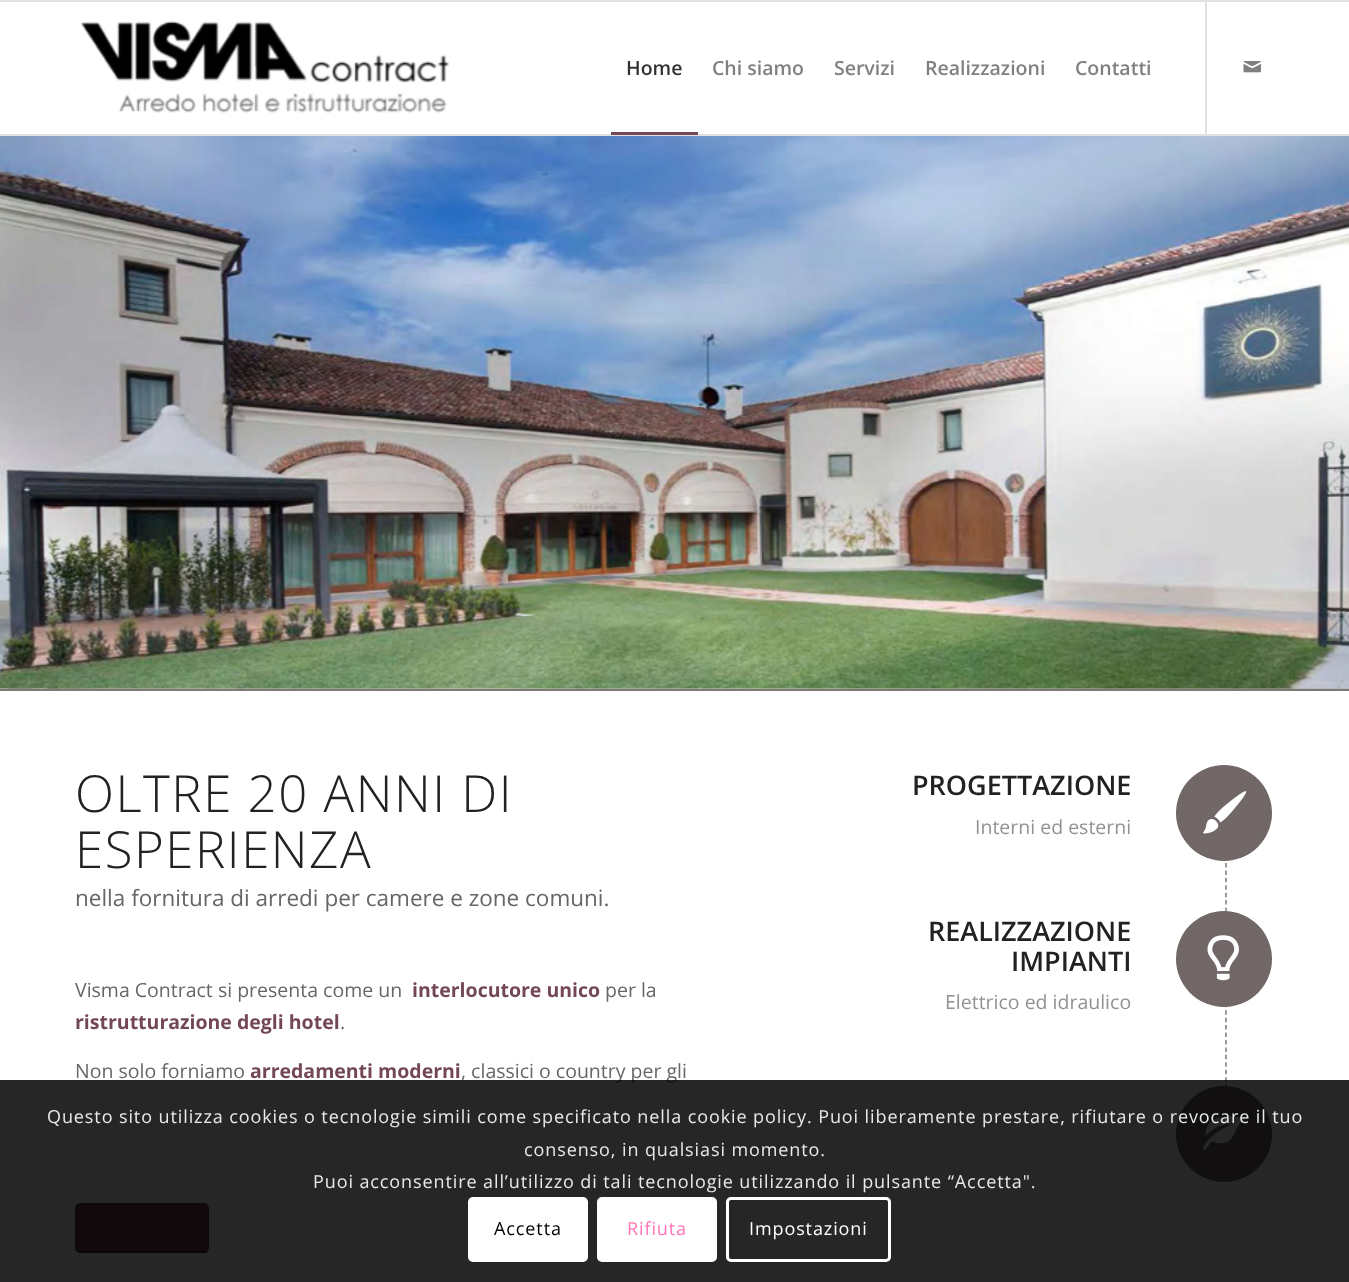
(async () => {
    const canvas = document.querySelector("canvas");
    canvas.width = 1349;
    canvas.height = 1282;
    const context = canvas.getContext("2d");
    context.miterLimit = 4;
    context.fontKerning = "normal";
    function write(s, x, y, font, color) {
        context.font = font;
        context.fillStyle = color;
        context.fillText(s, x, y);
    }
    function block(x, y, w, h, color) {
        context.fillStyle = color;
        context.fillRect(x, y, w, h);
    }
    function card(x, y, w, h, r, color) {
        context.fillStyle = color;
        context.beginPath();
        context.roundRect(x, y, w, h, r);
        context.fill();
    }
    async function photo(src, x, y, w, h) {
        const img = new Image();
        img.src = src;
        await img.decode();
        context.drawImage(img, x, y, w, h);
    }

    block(0, 0, 1349, 1282, "rgb(255, 255, 255)");
    block(0, 0, 1349, 2, "rgb(225, 225, 225)");
    block(0, 134, 1349, 2, "rgb(225, 225, 225)");
    await photo("media/1.png", 81, 21, 369, 92);
    block(1205, 2, 2, 132, "rgb(225, 225, 225)");
    write("Home", 626, 75, "600 19.5px Open Sans", "rgb(51, 51, 51)");
    block(611, 132, 87, 3, "rgb(115, 72, 84)");
    write("Chi siamo", 712, 75, "600 19.5px Open Sans", "rgb(128, 128, 128)");
    write("Servizi", 834, 75, "600 19.5px Open Sans", "rgb(128, 128, 128)");
    write("Realizzazioni", 925, 75, "600 19.5px Open Sans", "rgb(128, 128, 128)");
    write("Contatti", 1075, 75, "600 19.5px Open Sans", "rgb(128, 128, 128)");
    await photo("media/2.png", 1243, 61, 19, 12);
    await photo("media/3.png", 0, 688, 1349, 1);
    await photo("media/4.png", 0, 136, 1349, 553);
    block(0, 689, 1349, 2, "rgb(128, 120, 119)");
    context.letterSpacing = "1.5px";
    write("OLTRE 20 ANNI DI", 75, 812, "300 51px Open Sans", "rgb(34, 34, 34)");
    write("ESPERIENZA", 75, 868, "300 51px Open Sans", "rgb(34, 34, 34)");
    context.letterSpacing = "0px";
    write("nella fornitura di arredi per camere e zone comuni.", 75, 906, "22.5px Open Sans", "rgb(102, 102, 102)");
    write("Visma Contract si presenta come un", 75, 997, "19.5px Open Sans", "rgb(102, 102, 102)");
    write("interlocutore unico", 412, 997, "bold 19.5px Open Sans", "rgb(115, 72, 84)");
    write("per la", 605, 997, "19.5px Open Sans", "rgb(102, 102, 102)");
    write("ristrutturazione degli hotel", 75, 1029, "bold 19.5px Open Sans", "rgb(115, 72, 84)");
    write(".", 340, 1029, "19.5px Open Sans", "rgb(102, 102, 102)");
    write("Non solo forniamo", 75, 1078, "19.5px Open Sans", "rgb(102, 102, 102)");
    write("arredamenti moderni", 250, 1078, "bold 19.5px Open Sans", "rgb(115, 72, 84)");
    write(", classici o country per gli", 461, 1078, "19.5px Open Sans", "rgb(102, 102, 102)");
    card(75, 1203, 134, 50, 5, "rgb(115, 72, 84)");
    block(78, 1251, 129, 2, "rgb(81, 38, 50)");
    context.beginPath();
    context.moveTo(1226, 766.5);
    context.lineTo(1226, 912);
    context.strokeStyle = "rgb(128, 120, 119)";
    context.lineWidth = 1.5;
    context.setLineDash([4.5, 2.92]);
    context.stroke();
    context.fillStyle = "rgb(112, 103, 102)";
    context.beginPath();
    context.arc(1224, 813, 48, 0, Math.PI * 2);
    context.fill();
    await photo("media/5.png", 1203, 791, 44, 43);
    write("PROGETTAZIONE", 912, 795, "600 27px Open Sans", "rgb(34, 34, 34)");
    write("Interni ed esterni", 975, 834, "19.5px Open Sans", "rgb(145, 145, 145)");
    context.beginPath();
    context.moveTo(1226, 913.5);
    context.lineTo(1226, 1089);
    context.setLineDash([4.5, 2.94]);
    context.stroke();
    context.fillStyle = "rgb(112, 103, 102)";
    context.beginPath();
    context.arc(1224, 959, 48, 0, Math.PI * 2);
    context.fill();
    await photo("media/6.png", 1207, 935, 32, 46);
    write("REALIZZAZIONE", 928, 941, "600 27px Open Sans", "rgb(34, 34, 34)");
    write("IMPIANTI", 1011, 971, "600 27px Open Sans", "rgb(34, 34, 34)");
    write("Elettrico ed idraulico", 945, 1009, "19.5px Open Sans", "rgb(145, 145, 145)");
    context.fillStyle = "rgb(112, 103, 102)";
    context.beginPath();
    context.arc(1224, 1134, 48, 0, Math.PI * 2);
    context.fill();
    await photo("media/7.png", 1203, 1116, 43, 34);
    block(0, 1080, 1349, 202, "rgba(0, 0, 0, 0.85)");
    context.letterSpacing = "0.9px";
    write("Questo sito utilizza cookies o tecnologie simili come specificato nella cookie policy. Puoi liberamente prestare, rifiutare o revocare il tuo", 47, 1123, "18px Open Sans", "rgb(233, 233, 233)");
    write("consenso, in qualsiasi momento.", 524, 1156, "18px Open Sans", "rgb(233, 233, 233)");
    write("Puoi acconsentire all’utilizzo di tali tecnologie utilizzando il pulsante “Accetta\".", 313, 1188, "18px Open Sans", "rgb(233, 233, 233)");
    card(468, 1197, 120, 65, 5, "rgb(255, 255, 255)");
    write("Accetta", 494, 1235, "18px Open Sans", "rgb(0, 0, 0)");
    context.fillStyle = "rgb(255, 255, 255)";
    context.beginPath();
    context.roundRect(598.5, 1198.5, 117, 62, 3.5);
    context.fill();
    context.strokeStyle = "rgb(255, 255, 255)";
    context.lineWidth = 3;
    context.setLineDash([]);
    context.stroke();
    write("Rifiuta", 627, 1235, "18px Open Sans", "rgb(255, 117, 181)");
    context.beginPath();
    context.roundRect(727.5, 1198.5, 162, 62, 3.5);
    context.stroke();
    write("Impostazioni", 749, 1235, "18px Open Sans", "rgb(255, 255, 255)");
})();
